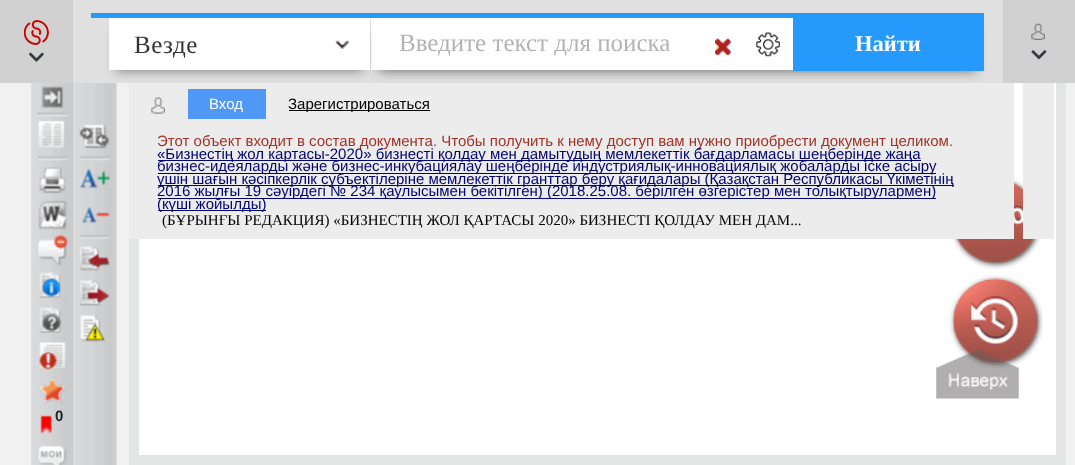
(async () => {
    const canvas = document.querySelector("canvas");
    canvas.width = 1075;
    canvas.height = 465;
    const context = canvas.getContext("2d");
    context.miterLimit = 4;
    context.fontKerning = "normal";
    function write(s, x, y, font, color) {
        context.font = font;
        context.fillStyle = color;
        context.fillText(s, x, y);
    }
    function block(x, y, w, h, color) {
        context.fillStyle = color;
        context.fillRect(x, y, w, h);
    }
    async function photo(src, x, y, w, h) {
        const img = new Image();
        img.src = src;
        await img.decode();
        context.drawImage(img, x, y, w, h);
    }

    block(0, 0, 1075, 465, "rgb(241, 241, 241)");
    block(139, 83, 917, 372, "rgb(255, 255, 255)");
    context.strokeStyle = "rgb(227, 229, 228)";
    context.lineWidth = 10;
    context.strokeRect(134, -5, 927, 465);
    await photo("media/1.png", 953, 179, 87, 90);
    await photo("media/2.png", 949, 275, 94, 94);
    await photo("media/3.png", 936, 349, 83, 50);
    block(0, 0, 73, 83, "rgb(209, 209, 209)");
    await photo("media/4.png", 24, 20, 25, 25);
    await photo("media/5.png", 29, 52, 15, 10);
    block(73, 0, 930, 83, "rgb(224, 224, 224)");
    block(129, 83, 885, 156, "rgb(236, 236, 236)");
    context.fillStyle = "rgba(0, 0, 0, 0.5)";
    context.filter = "blur(6px)";
    context.beginPath();
    context.rect(379, 28, 597, 43);
    context.fill();
    context.filter = "none";
    block(91, 13, 893, 5, "rgb(38, 153, 252)");
    block(371, 18, 422, 52, "rgb(255, 255, 255)");
    block(73, 83, 1, 382, "rgb(209, 209, 207)");
    await photo("media/26.png", 73, 83, 44, 382);
    context.fillStyle = "rgba(0, 0, 0, 0.5)";
    context.filter = "blur(6px)";
    context.beginPath();
    context.rect(116, 33, 247, 37);
    context.fill();
    context.filter = "none";
    block(109, 18, 261, 52, "rgb(255, 255, 255)");
    await photo("media/6.png", 335, 40, 15, 9);
    context.letterSpacing = "0.5px";
    write("Везде", 134, 53, "25px Liberation Serif", "rgb(51, 51, 51)");
    context.letterSpacing = "0px";
    write("Введите текст для поиска", 399, 51, "25px Liberation Serif", "rgb(179, 179, 179)");
    await photo("media/7.png", 715, 38, 17, 17);
    await photo("media/8.png", 756, 32, 24, 25);
    block(793, 18, 191, 53, "rgb(38, 153, 252)");
    write("Найти", 855, 51, "bold 22.5px Liberation Serif", "rgb(255, 255, 255)");
    block(1003, 0, 72, 83, "rgb(209, 209, 209)");
    await photo("media/9.png", 1031, 23, 14, 17);
    await photo("media/10.png", 1031, 50, 16, 10);
    await photo("media/11.png", 151, 97, 14, 17);
    block(188, 89, 78, 30, "rgb(80, 152, 245)");
    write("Вход", 209, 109, "15px Liberation Sans", "rgb(255, 255, 255)");
    block(289, 110, 141, 1, "rgb(0, 0, 0)");
    write("Зарегистрироваться", 288, 109, "15px Liberation Sans", "rgb(0, 0, 0)");
    write("Этот объект входит в состав документа. Чтобы получить к нему доступ вам нужно приобрести документ целиком.", 157, 146, "15px Liberation Sans", "rgb(162, 51, 38)");
    block(158, 160, 763, 1, "rgb(1, 4, 112)");
    write("«Бизнестің жол картасы-2020» бизнесті қолдау мен дамытудың мемлекеттік бағдарламасы шеңберінде жаңа", 157, 159, "15px Liberation Sans", "rgb(1, 4, 112)");
    block(158, 173, 778, 1, "rgb(1, 4, 112)");
    write("бизнес-идеяларды және бизнес-инкубациялау шеңберінде индустриялық-инновациялық жобаларды іске асыру", 157, 171, "15px Liberation Sans", "rgb(1, 4, 112)");
    block(158, 185, 796, 1, "rgb(1, 4, 112)");
    write("үшін шағын кәсіпкерлік субъектілеріне мемлекеттік гранттар беру қағидалары (Қазақстан Республикасы Үкіметінің", 157, 184, "15px Liberation Sans", "rgb(1, 4, 112)");
    block(158, 198, 778, 1, "rgb(1, 4, 112)");
    write("2016 жылғы 19 сәуірдегі № 234 қаулысымен бекітілген) (2018.25.08. берілген өзгерістер мен толықтырулармен)", 157, 196, "15px Liberation Sans", "rgb(1, 4, 112)");
    block(158, 210, 108, 1, "rgb(1, 4, 112)");
    write("(күші жойылды)", 157, 209, "15px Liberation Sans", "rgb(1, 4, 112)");
    write("(БҰРЫНҒЫ РЕДАКЦИЯ) «БИЗНЕСТІҢ ЖОЛ ҚАРТАСЫ 2020» БИЗНЕСТІ ҚОЛДАУ МЕН ДАМ...", 162, 225, "15px Liberation Serif", "rgb(0, 0, 0)");
    block(1023, 83, 31, 156, "rgb(236, 236, 236)");
    await photo("media/12.png", 31, 83, 42, 382);
    await photo("media/13.png", 41, 86, 23, 23);
    await photo("media/14.png", 37, 112, 31, 5);
    await photo("media/15.png", 38, 120, 27, 28);
    await photo("media/16.png", 38, 156, 30, 5);
    await photo("media/17.png", 39, 167, 27, 27);
    await photo("media/18.png", 38, 200, 29, 30);
    await photo("media/19.png", 38, 234, 30, 32);
    await photo("media/20.png", 39, 272, 26, 29);
    await photo("media/21.png", 39, 307, 23, 26);
    await photo("media/22.png", 39, 342, 27, 28);
    await photo("media/23.png", 38, 377, 29, 27);
    await photo("media/24.png", 40, 415, 12, 19);
    write("0", 55, 421, "bold 15px Liberation Sans", "rgb(33, 37, 41)");
    await photo("media/25.png", 38, 445, 29, 20);
    await photo("media/27.png", 79, 124, 31, 25);
    await photo("media/28.png", 79, 156, 31, 5);
    await photo("media/29.png", 79, 168, 31, 21);
    await photo("media/30.png", 82, 207, 28, 17);
    await photo("media/31.png", 79, 234, 31, 5);
    await photo("media/32.png", 79, 246, 31, 25);
    await photo("media/33.png", 79, 279, 31, 27);
    await photo("media/34.png", 80, 315, 25, 27);
})();
